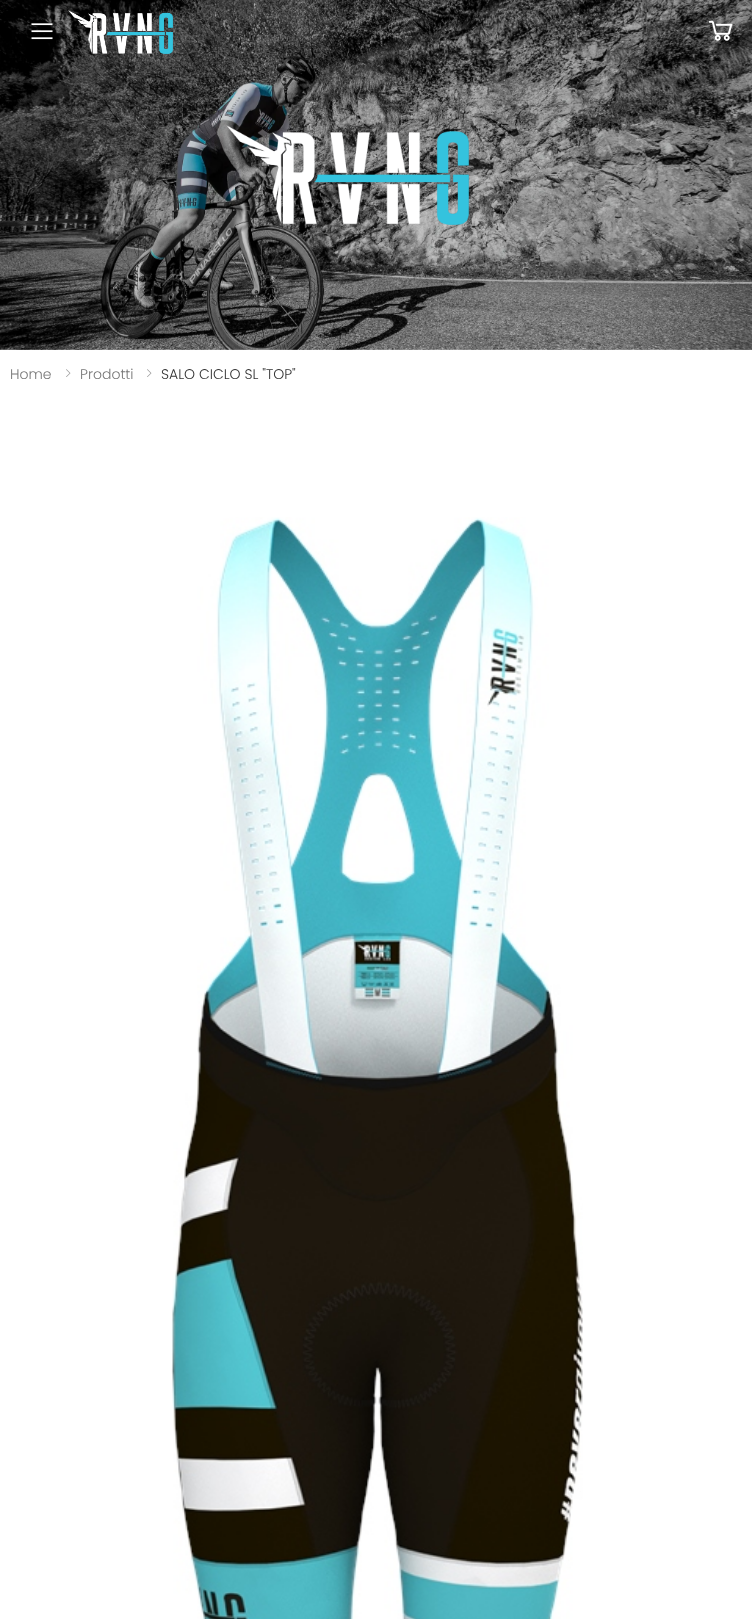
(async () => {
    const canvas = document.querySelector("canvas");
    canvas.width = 752;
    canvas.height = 1619;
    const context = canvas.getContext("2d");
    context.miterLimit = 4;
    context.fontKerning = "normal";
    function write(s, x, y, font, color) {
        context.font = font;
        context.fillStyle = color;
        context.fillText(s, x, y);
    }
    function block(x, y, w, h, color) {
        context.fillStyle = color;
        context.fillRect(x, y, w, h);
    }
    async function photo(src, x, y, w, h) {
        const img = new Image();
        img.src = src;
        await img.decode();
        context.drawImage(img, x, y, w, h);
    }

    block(0, 0, 752, 1619, "rgb(255, 255, 255)");
    await photo("media/4.png", 0, 0, 752, 350);
    await photo("media/1.png", 31, 23, 22, 17);
    await photo("media/2.png", 68, 10, 105, 44);
    await photo("media/3.png", 708, 20, 25, 21);
    await photo("media/5.png", 226, 125, 243, 100);
    write("Home", 10, 379, "300 14px Poppins", "rgb(119, 119, 119)");
    await photo("media/6.png", 66, 369, 5, 8);
    write("Prodotti", 80, 379, "300 14px Poppins", "rgb(119, 119, 119)");
    await photo("media/6.png", 147, 369, 5, 8);
    write("SALO CICLO SL \"TOP\"", 161, 379, "300 14px Poppins", "rgb(51, 51, 51)");
    await photo("media/7.png", 171, 517, 412, 1102);
})();
